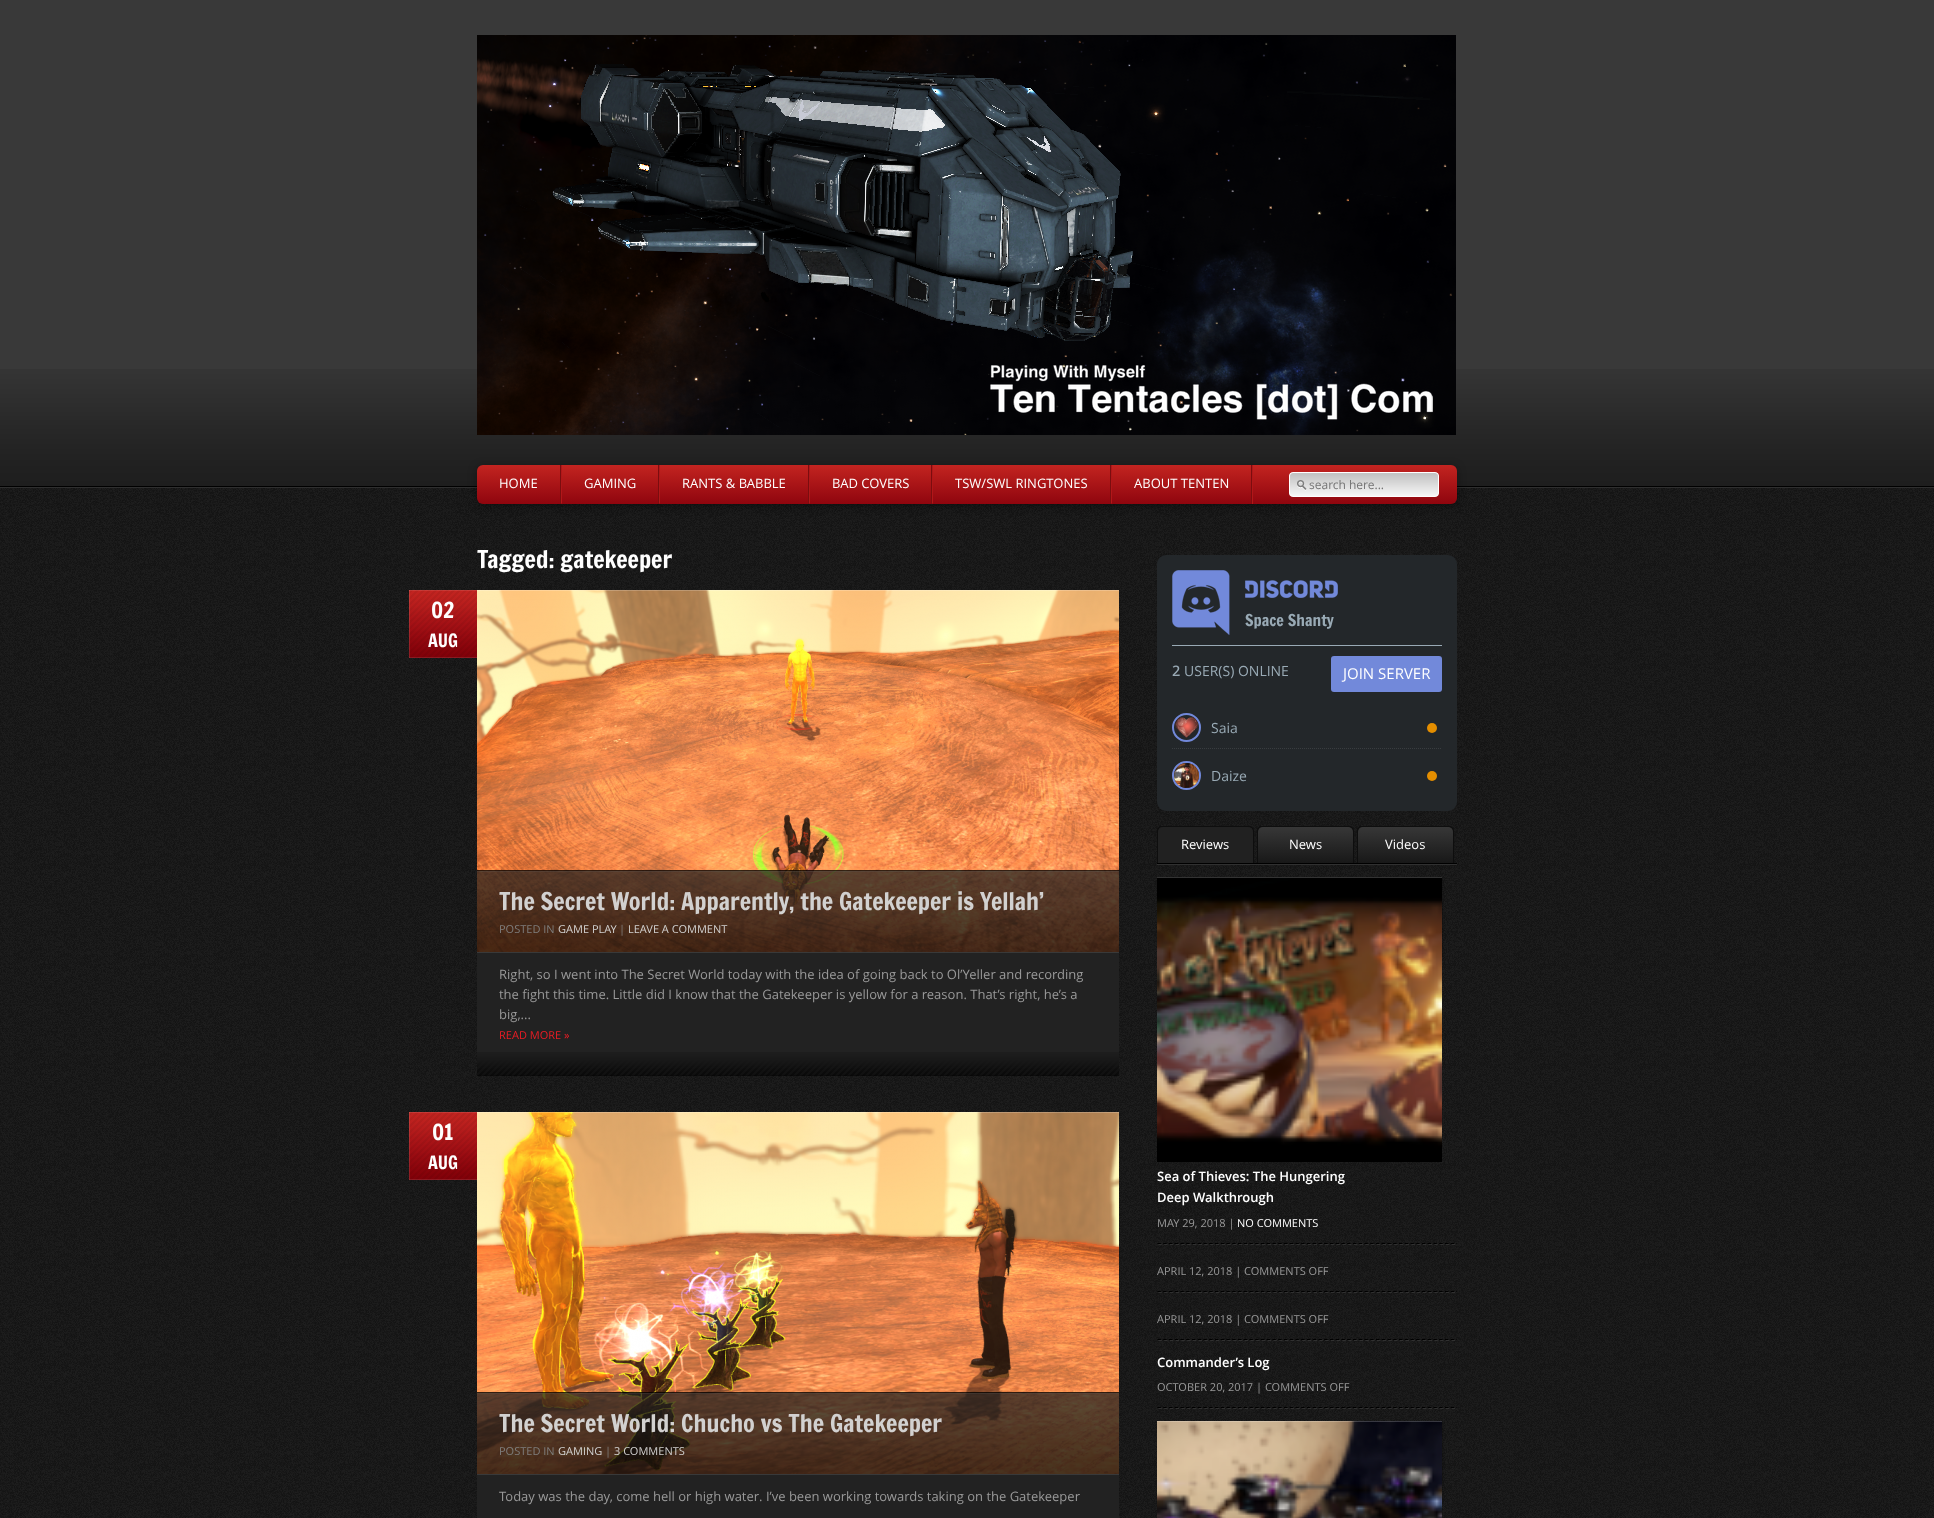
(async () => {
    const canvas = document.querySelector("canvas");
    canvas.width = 1934;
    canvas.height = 1518;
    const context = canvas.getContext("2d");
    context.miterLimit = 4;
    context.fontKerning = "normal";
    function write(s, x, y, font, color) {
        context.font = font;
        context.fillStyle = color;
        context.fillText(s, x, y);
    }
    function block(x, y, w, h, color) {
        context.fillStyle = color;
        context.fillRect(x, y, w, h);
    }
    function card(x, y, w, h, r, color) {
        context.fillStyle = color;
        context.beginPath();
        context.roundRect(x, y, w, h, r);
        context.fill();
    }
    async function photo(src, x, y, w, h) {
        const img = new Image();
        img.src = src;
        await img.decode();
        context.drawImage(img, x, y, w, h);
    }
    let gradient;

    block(0, 0, 1934, 1518, "rgb(255, 255, 255)");
    await photo("media/1.png", 0, 488, 1934, 1030);
    block(0, 0, 1934, 369, "rgb(57, 57, 57)");
    await photo("media/2.png", 0, 369, 1934, 119);
    await photo("media/3.png", 477, 35, 979, 400);
    context.fillStyle = "rgba(0, 0, 0, 0.35)";
    context.filter = "blur(5px)";
    context.beginPath();
    context.roundRect(477, 467, 980, 39, 6);
    context.fill();
    context.filter = "none";
    gradient = context.createLinearGradient(967, 465, 967, 504);
    gradient.addColorStop(0, "rgb(195, 36, 32)");
    gradient.addColorStop(1, "rgb(143, 5, 14)");
    context.fillStyle = gradient;
    context.beginPath();
    context.roundRect(477, 465, 980, 39, 6);
    context.fill();
    block(560, 465, 1, 39, "rgb(123, 13, 15)");
    write("HOME", 499, 488, "13px 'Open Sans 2'", "rgb(255, 255, 255)");
    block(658, 465, 1, 39, "rgb(123, 13, 15)");
    context.fillStyle = "rgb(177, 23, 25)";
    context.beginPath();
    context.moveTo(561, 504);
    context.lineTo(561, 465);
    context.lineTo(562, 465);
    context.lineTo(562, 503);
    context.closePath();
    context.fill();
    write("GAMING", 584, 488, "13px 'Open Sans 2'", "rgb(255, 255, 255)");
    block(808, 465, 1, 39, "rgb(123, 13, 15)");
    context.fillStyle = "rgb(177, 23, 25)";
    context.beginPath();
    context.moveTo(659, 504);
    context.lineTo(659, 465);
    context.lineTo(660, 465);
    context.lineTo(660, 503);
    context.closePath();
    context.fill();
    write("RANTS & BABBLE", 682, 488, "13px 'Open Sans 2'", "rgb(255, 255, 255)");
    block(931, 465, 1, 39, "rgb(123, 13, 15)");
    context.fillStyle = "rgb(177, 23, 25)";
    context.beginPath();
    context.moveTo(809, 504);
    context.lineTo(809, 465);
    context.lineTo(810, 465);
    context.lineTo(810, 503);
    context.closePath();
    context.fill();
    write("BAD COVERS", 832, 488, "13px 'Open Sans 2'", "rgb(255, 255, 255)");
    block(1110, 465, 1, 39, "rgb(123, 13, 15)");
    context.fillStyle = "rgb(177, 23, 25)";
    context.beginPath();
    context.moveTo(932, 504);
    context.lineTo(932, 465);
    context.lineTo(933, 465);
    context.lineTo(933, 503);
    context.closePath();
    context.fill();
    write("TSW/SWL RINGTONES", 955, 488, "13px 'Open Sans 2'", "rgb(255, 255, 255)");
    block(1252, 465, 1, 39, "rgb(177, 23, 25)");
    context.fillStyle = "rgb(123, 13, 15)";
    context.beginPath();
    context.moveTo(1252, 465);
    context.lineTo(1252, 504);
    context.lineTo(1251, 503);
    context.lineTo(1251, 465);
    context.closePath();
    context.fill();
    context.fillStyle = "rgb(177, 23, 25)";
    context.beginPath();
    context.moveTo(1111, 504);
    context.lineTo(1111, 465);
    context.lineTo(1112, 465);
    context.lineTo(1112, 503);
    context.closePath();
    context.fill();
    write("ABOUT TENTEN", 1134, 488, "13px 'Open Sans 2'", "rgb(255, 255, 255)");
    await photo("media/4.png", 1289, 472, 150, 25);
    write("search here...", 1309, 489, "12px 'Open Sans 2'", "rgb(117, 117, 117)");
    write("Tagged: gatekeeper", 477, 568, "24px Francois One", "rgb(255, 255, 255)");
    await photo("media/5.png", 409, 590, 68, 68);
    write("02", 431, 618, "22px Francois One", "rgb(255, 255, 255)");
    write("AUG", 428, 647, "18px Francois One", "rgb(255, 255, 255)");
    await photo("media/6.png", 477, 590, 642, 362);
    block(477, 590, 642, 1, "rgba(255, 255, 255, 0.2)");
    await photo("media/7.png", 477, 870, 642, 82);
    write("The Secret World: Apparently, the Gatekeeper is Yellah’", 499, 910, "24px Francois One", "rgb(210, 209, 208)");
    write("POSTED IN", 499, 933, "11px 'Open Sans 2'", "rgb(127, 126, 125)");
    write("GAME PLAY", 558, 933, "11px 'Open Sans 2'", "rgb(210, 209, 208)");
    write("|", 619, 933, "11px 'Open Sans 2'", "rgb(127, 126, 125)");
    write("LEAVE A COMMENT", 628, 933, "11px 'Open Sans 2'", "rgb(210, 209, 208)");
    block(477, 953, 642, 99, "rgb(34, 34, 34)");
    await photo("media/8.png", 477, 1052, 642, 24);
    block(477, 952, 642, 1, "rgb(57, 57, 57)");
    write("Right, so I went into The Secret World today with the idea of going back to Ol’Yeller and recording", 499, 979, "13px 'Open Sans 2'", "rgb(153, 153, 153)");
    write("the fight this time. Little did I know that the Gatekeeper is yellow for a reason. That’s right, he’s a", 499, 999, "13px 'Open Sans 2'", "rgb(153, 153, 153)");
    write("big,...", 499, 1019, "13px 'Open Sans 2'", "rgb(153, 153, 153)");
    write("READ MORE »", 499, 1039, "11px 'Open Sans 2'", "rgb(237, 28, 36)");
    await photo("media/5.png", 409, 1112, 68, 68);
    write("01", 432, 1140, "22px Francois One", "rgb(255, 255, 255)");
    write("AUG", 428, 1169, "18px Francois One", "rgb(255, 255, 255)");
    await photo("media/9.png", 477, 1112, 642, 362);
    block(477, 1112, 642, 1, "rgba(255, 255, 255, 0.2)");
    await photo("media/10.png", 477, 1392, 642, 82);
    write("The Secret World: Chucho vs The Gatekeeper", 499, 1432, "24px Francois One", "rgb(210, 209, 208)");
    write("POSTED IN", 499, 1455, "11px 'Open Sans 2'", "rgb(127, 126, 125)");
    write("GAMING", 558, 1455, "11px 'Open Sans 2'", "rgb(210, 209, 208)");
    write("|", 605, 1455, "11px 'Open Sans 2'", "rgb(127, 126, 125)");
    write("3 COMMENTS", 614, 1455, "11px 'Open Sans 2'", "rgb(210, 209, 208)");
    block(477, 1475, 642, 43, "rgb(34, 34, 34)");
    block(477, 1474, 642, 1, "rgb(57, 57, 57)");
    write("Today was the day, come hell or high water. I’ve been working towards taking on the Gatekeeper", 499, 1501, "13px 'Open Sans 2'", "rgb(153, 153, 153)");
    card(1157, 555, 300, 256, 9, "rgb(35, 39, 42)");
    block(1172, 645, 270, 1, "rgb(153, 170, 181)");
    await photo("media/11.png", 1172, 570, 58, 65);
    await photo("media/12.png", 1245, 580, 93, 18);
    write("Space Shanty", 1245, 626, "16px Francois One", "rgb(153, 170, 181)");
    write("2", 1172, 676, "bold 14px Open Sans", "rgb(153, 170, 181)");
    write("USER(S) ONLINE", 1184, 676, "14px Open Sans", "rgb(153, 170, 181)");
    card(1331, 656, 111, 36, 3, "rgb(114, 137, 218)");
    write("JOIN SERVER", 1343, 679, "15px Open Sans", "rgb(255, 255, 255)");
    context.beginPath();
    context.moveTo(1172, 748.5);
    context.lineTo(1442, 748.5);
    context.strokeStyle = "rgb(57, 61, 64)";
    context.setLineDash([1, 1]);
    context.stroke();
    context.beginPath();
    context.arc(1186.5, 727.5, 13.5, 0, Math.PI * 2);
    context.strokeStyle = "rgb(114, 137, 218)";
    context.lineWidth = 2;
    context.setLineDash([]);
    context.stroke();
    await photo("media/13.png", 1174, 717, 25, 21);
    write("Saia", 1211, 733, "14px Open Sans", "rgb(153, 170, 181)");
    context.fillStyle = "rgb(228, 142, 0)";
    context.beginPath();
    context.arc(1432, 728, 5, 0, Math.PI * 2);
    context.fill();
    context.beginPath();
    context.arc(1186.5, 775.5, 13.5, 0, Math.PI * 2);
    context.stroke();
    await photo("media/14.png", 1174, 763, 25, 25);
    write("Daize", 1211, 781, "14px Open Sans", "rgb(153, 170, 181)");
    context.fillStyle = "rgb(228, 142, 0)";
    context.beginPath();
    context.arc(1432, 776, 5, 0, Math.PI * 2);
    context.fill();
    await photo("media/15.png", 1157, 863, 300, 2);
    context.fillStyle = "rgb(14, 14, 14)";
    context.beginPath();
    context.moveTo(1162, 826);
    context.lineTo(1249, 826);
    context.bezierCurveTo(1252, 826, 1254, 828, 1254, 831);
    context.lineTo(1254, 863);
    context.lineTo(1157, 863);
    context.lineTo(1157, 831);
    context.bezierCurveTo(1157, 828, 1159, 826, 1162, 826);
    context.closePath();
    context.moveTo(1162, 827);
    context.lineTo(1249, 827);
    context.bezierCurveTo(1251, 827, 1253, 829, 1253, 831);
    context.lineTo(1253, 863);
    context.lineTo(1158, 863);
    context.lineTo(1158, 831);
    context.bezierCurveTo(1158, 829, 1160, 827, 1162, 827);
    context.closePath();
    context.fill("evenodd");
    context.save();
    context.beginPath();
    context.roundRect(1158, 827, 95, 36, [4, 4, 0, 0]);
    context.clip();
    context.fillStyle = "rgb(33, 33, 33)";
    context.beginPath();
    context.roundRect(1158, 827, 95, 36, [5, 5, 0, 0]);
    context.fill();
    context.restore();
    write("Reviews", 1181, 849, "13px 'Open Sans 2'", "rgb(255, 255, 255)");
    context.fillStyle = "rgb(14, 14, 14)";
    context.beginPath();
    context.moveTo(1262, 826);
    context.lineTo(1349, 826);
    context.bezierCurveTo(1352, 826, 1354, 828, 1354, 831);
    context.lineTo(1354, 863);
    context.lineTo(1257, 863);
    context.lineTo(1257, 831);
    context.bezierCurveTo(1257, 828, 1259, 826, 1262, 826);
    context.closePath();
    context.moveTo(1262, 827);
    context.lineTo(1349, 827);
    context.bezierCurveTo(1351, 827, 1353, 829, 1353, 831);
    context.lineTo(1353, 863);
    context.lineTo(1258, 863);
    context.lineTo(1258, 831);
    context.bezierCurveTo(1258, 829, 1260, 827, 1262, 827);
    context.closePath();
    context.fill("evenodd");
    context.save();
    context.beginPath();
    context.roundRect(1258, 827, 95, 36, [4, 4, 0, 0]);
    context.clip();
    gradient = context.createLinearGradient(1306, 827, 1306, 863);
    gradient.addColorStop(0, "rgb(55, 55, 55)");
    gradient.addColorStop(1, "rgb(24, 24, 24)");
    context.fillStyle = gradient;
    context.beginPath();
    context.roundRect(1258, 827, 95, 36, [5, 5, 0, 0]);
    context.fill();
    context.restore();
    write("News", 1289, 849, "13px 'Open Sans 2'", "rgb(255, 255, 255)");
    context.fillStyle = "rgb(14, 14, 14)";
    context.beginPath();
    context.moveTo(1362, 826);
    context.lineTo(1449, 826);
    context.bezierCurveTo(1452, 826, 1454, 828, 1454, 831);
    context.lineTo(1454, 863);
    context.lineTo(1357, 863);
    context.lineTo(1357, 831);
    context.bezierCurveTo(1357, 828, 1359, 826, 1362, 826);
    context.closePath();
    context.moveTo(1362, 827);
    context.lineTo(1449, 827);
    context.bezierCurveTo(1451, 827, 1453, 829, 1453, 831);
    context.lineTo(1453, 863);
    context.lineTo(1358, 863);
    context.lineTo(1358, 831);
    context.bezierCurveTo(1358, 829, 1360, 827, 1362, 827);
    context.closePath();
    context.fill("evenodd");
    context.save();
    context.beginPath();
    context.roundRect(1358, 827, 95, 36, [4, 4, 0, 0]);
    context.clip();
    gradient = context.createLinearGradient(1406, 827, 1406, 863);
    gradient.addColorStop(0, "rgb(55, 55, 55)");
    gradient.addColorStop(1, "rgb(24, 24, 24)");
    context.fillStyle = gradient;
    context.beginPath();
    context.roundRect(1358, 827, 95, 36, [5, 5, 0, 0]);
    context.fill();
    context.restore();
    write("Videos", 1385, 849, "13px 'Open Sans 2'", "rgb(255, 255, 255)");
    await photo("media/16.png", 1157, 1243, 300, 2);
    context.save();
    context.beginPath();
    context.rect(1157, 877, 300, 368);
    context.clip();
    context.fillStyle = "rgba(0, 0, 0, 0.5)";
    context.filter = "blur(1.5px)";
    context.beginPath();
    context.rect(1157, 878, 285, 80);
    context.fill();
    context.filter = "none";
    context.restore();
    block(1157, 877, 285, 1, "rgb(51, 51, 51)");
    await photo("media/17.png", 1157, 878, 285, 284);
    write("Sea of Thieves: The Hungering", 1157, 1181, "600 13px Open Sans", "rgb(255, 255, 255)");
    write("Deep Walkthrough", 1157, 1202, "600 13px Open Sans", "rgb(255, 255, 255)");
    write("MAY 29, 2018 |", 1157, 1227, "11px 'Open Sans 2'", "rgb(153, 153, 153)");
    write("NO COMMENTS", 1237, 1227, "11px 'Open Sans 2'", "rgb(255, 255, 255)");
    await photo("media/18.png", 1157, 1291, 300, 2);
    write("APRIL 12, 2018 | COMMENTS OFF", 1157, 1275, "11px 'Open Sans 2'", "rgb(153, 153, 153)");
    await photo("media/19.png", 1157, 1339, 300, 2);
    write("APRIL 12, 2018 | COMMENTS OFF", 1157, 1323, "11px 'Open Sans 2'", "rgb(153, 153, 153)");
    await photo("media/20.png", 1157, 1407, 300, 2);
    write("Commander’s Log", 1157, 1367, "600 13px Open Sans", "rgb(255, 255, 255)");
    write("OCTOBER 20, 2017 | COMMENTS OFF", 1157, 1391, "11px 'Open Sans 2'", "rgb(153, 153, 153)");
    context.save();
    context.beginPath();
    context.rect(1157, 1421, 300, 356);
    context.clip();
    context.fillStyle = "rgba(0, 0, 0, 0.5)";
    context.filter = "blur(1.5px)";
    context.beginPath();
    context.rect(1157, 1422, 285, 80);
    context.fill();
    context.filter = "none";
    context.restore();
    await photo("media/21.png", 1157, 1421, 285, 97);
    block(1157, 1421, 285, 1, "rgba(255, 255, 255, 0.2)");
})();
